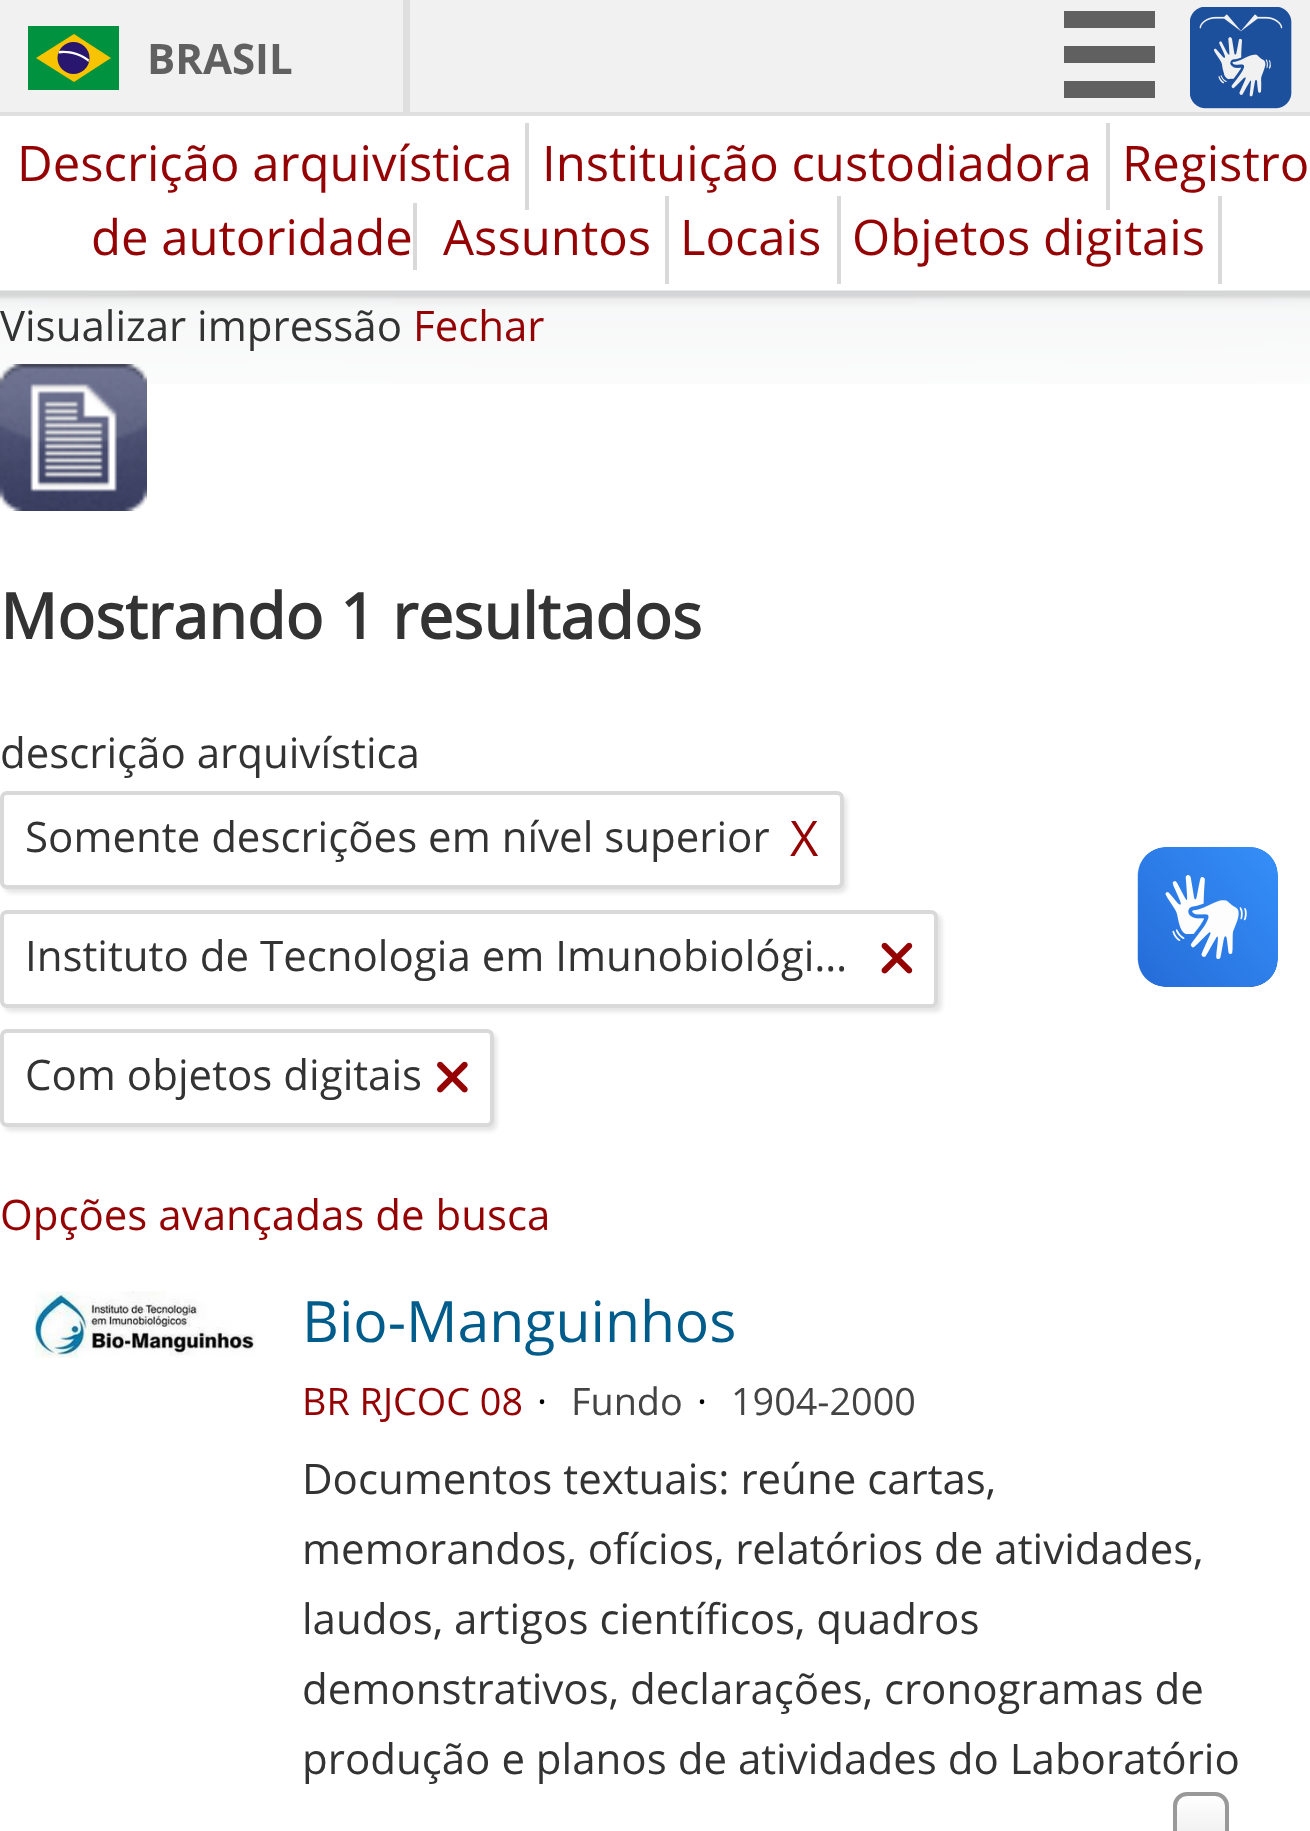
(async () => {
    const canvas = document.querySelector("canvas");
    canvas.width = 1310;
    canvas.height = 1831;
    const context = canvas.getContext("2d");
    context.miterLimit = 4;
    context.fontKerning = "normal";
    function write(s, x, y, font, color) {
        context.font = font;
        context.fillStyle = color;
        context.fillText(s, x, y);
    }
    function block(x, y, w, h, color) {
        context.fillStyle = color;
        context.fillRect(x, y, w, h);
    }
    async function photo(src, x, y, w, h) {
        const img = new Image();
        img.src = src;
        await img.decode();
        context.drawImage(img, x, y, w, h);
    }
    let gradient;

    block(0, 0, 1310, 1831, "rgb(255, 255, 255)");
    block(0, 0, 1310, 112, "rgb(241, 241, 241)");
    block(0, 112, 1310, 4, "rgb(223, 223, 223)");
    block(403, 0, 7, 112, "rgb(223, 223, 223)");
    block(28, 26, 91, 64, "rgb(0, 146, 63)");
    context.fillStyle = "rgb(248, 195, 0)";
    context.beginPath();
    context.moveTo(74, 34);
    context.lineTo(36, 58);
    context.lineTo(74, 82);
    context.lineTo(111, 58);
    context.closePath();
    context.fill();
    context.fillStyle = "rgb(40, 22, 111)";
    context.beginPath();
    context.arc(73.5, 58, 16, 0, Math.PI * 2);
    context.fill();
    context.fillStyle = "rgb(255, 255, 255)";
    context.beginPath();
    context.moveTo(64, 53);
    context.bezierCurveTo(73.5, 53, 82, 56.5, 88.5, 62);
    context.lineTo(89, 59.5);
    context.bezierCurveTo(81, 53, 70, 50, 59, 51);
    context.lineTo(58.5, 53.5);
    context.closePath();
    context.fill();
    write("BRASIL", 147, 74, "bold 42px 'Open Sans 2'", "rgb(96, 96, 96)");
    block(1064, 11, 91, 17, "rgb(96, 96, 96)");
    block(1064, 46, 91, 17, "rgb(96, 96, 96)");
    block(1064, 81, 91, 17, "rgb(96, 96, 96)");
    await photo("media/1.png", 1190, 7, 102, 102);
    write("Descrição arquivística", 17, 181, "49px Open Sans", "rgb(149, 2, 4)");
    block(525, 123, 4, 87, "rgb(217, 217, 217)");
    write("Instituição custodiadora", 542, 181, "49px Open Sans", "rgb(149, 2, 4)");
    block(1106, 123, 4, 87, "rgb(217, 217, 217)");
    write("Registro", 1122, 181, "49px Open Sans", "rgb(149, 2, 4)");
    write("de autoridade", 91, 255, "49px Open Sans", "rgb(149, 2, 4)");
    block(413, 203, 4, 67, "rgb(217, 217, 217)");
    write("Assuntos", 443, 255, "49px Open Sans", "rgb(149, 2, 4)");
    block(665, 196, 4, 88, "rgb(217, 217, 217)");
    write("Locais", 680, 255, "49px Open Sans", "rgb(149, 2, 4)");
    block(837, 196, 4, 88, "rgb(217, 217, 217)");
    write("Objetos digitais", 852, 255, "49px Open Sans", "rgb(149, 2, 4)");
    block(1218, 196, 4, 88, "rgb(217, 217, 217)");
    await photo("media/2.png", 0, 290, 1310, 94);
    write("Visualizar impressão", 0, 341, "42px Open Sans", "rgb(51, 51, 51)");
    write("Fechar", 413, 341, "42px Open Sans", "rgb(149, 2, 4)");
    await photo("media/3.png", 0, 364, 147, 147);
    write("Mostrando 1 resultados", 0, 639, "bold 63px Open Sans", "rgb(51, 51, 51)");
    write("descrição arquivística", 0, 768, "42px Open Sans", "rgb(51, 51, 51)");
    context.fillStyle = "rgba(0, 0, 0, 0.1)";
    context.filter = "blur(2px)";
    context.beginPath();
    context.roundRect(4, 795, 843, 98, 7);
    context.fill();
    context.filter = "none";
    context.fillStyle = "rgb(255, 255, 255)";
    context.beginPath();
    context.roundRect(2, 793, 840, 94, 5);
    context.fill();
    context.strokeStyle = "rgb(217, 217, 217)";
    context.lineWidth = 4;
    context.stroke();
    write("Somente descrições em nível superior", 25, 852, "42px Open Sans", "rgb(51, 51, 51)");
    write("X", 790, 856, "49px Open Sans", "rgb(149, 2, 4)");
    context.fillStyle = "rgba(0, 0, 0, 0.1)";
    context.filter = "blur(2px)";
    context.beginPath();
    context.roundRect(4, 914, 938, 98, 7);
    context.fill();
    context.filter = "none";
    context.fillStyle = "rgb(255, 255, 255)";
    context.beginPath();
    context.roundRect(2, 912, 934, 94, 5);
    context.fill();
    context.stroke();
    write("Instituto de Tecnologia em Imunobiológi…", 25, 971, "42px Open Sans", "rgb(51, 51, 51)");
    await photo("media/4.png", 881, 942, 32, 32);
    context.fillStyle = "rgba(0, 0, 0, 0.1)";
    context.filter = "blur(2px)";
    context.beginPath();
    context.roundRect(4, 1033, 493, 98, 7);
    context.fill();
    context.filter = "none";
    context.fillStyle = "rgb(255, 255, 255)";
    context.beginPath();
    context.roundRect(2, 1031, 490, 94, 5);
    context.fill();
    context.stroke();
    write("Com objetos digitais", 25, 1090, "42px Open Sans", "rgb(51, 51, 51)");
    await photo("media/5.png", 437, 1061, 31, 32);
    write("Opções avançadas de busca", 0, 1230, "42px Open Sans", "rgb(149, 2, 4)");
    await photo("media/6.png", 35, 1291, 221, 67);
    write("Bio-Manguinhos", 302, 1342, "57px Open Sans", "rgb(0, 92, 138)");
    write("BR RJCOC 08", 302, 1415, "37.75px Open Sans", "rgb(149, 2, 4)");
    write("·", 537, 1415, "37.75px Open Sans", "rgb(0, 0, 0)");
    write("Fundo", 571, 1415, "37.75px Open Sans", "rgb(68, 68, 68)");
    write("·", 697, 1415, "37.75px Open Sans", "rgb(0, 0, 0)");
    write("1904-2000", 731, 1415, "37.75px Open Sans", "rgb(68, 68, 68)");
    write("Documentos textuais: reúne cartas,", 302, 1494, "42px Open Sans", "rgb(51, 51, 51)");
    write("memorandos, ofícios, relatórios de atividades,", 302, 1564, "42px Open Sans", "rgb(51, 51, 51)");
    write("laudos, artigos científicos, quadros", 302, 1634, "42px Open Sans", "rgb(51, 51, 51)");
    write("demonstrativos, declarações, cronogramas de", 302, 1704, "42px Open Sans", "rgb(51, 51, 51)");
    write("produção e planos de atividades do Laboratório", 302, 1774, "42px Open Sans", "rgb(51, 51, 51)");
    context.save();
    context.beginPath();
    context.roundRect(1173, 1792, 56, 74, 14);
    context.clip();
    gradient = context.createLinearGradient(1201, 1796, 1201, 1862);
    gradient.addColorStop(0, "rgb(255, 255, 255)");
    gradient.addColorStop(1, "rgb(230, 230, 230)");
    context.fillStyle = gradient;
    context.fillRect(1173, 1796, 56, 35);
    context.restore();
    context.beginPath();
    context.roundRect(1175, 1794, 52, 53, 12);
    context.strokeStyle = "rgb(153, 153, 153)";
    context.stroke();
    await photo("media/7.png", 1137, 847, 141, 140);
    await photo("media/8.png", 1138, 847, 140, 140);
})();
